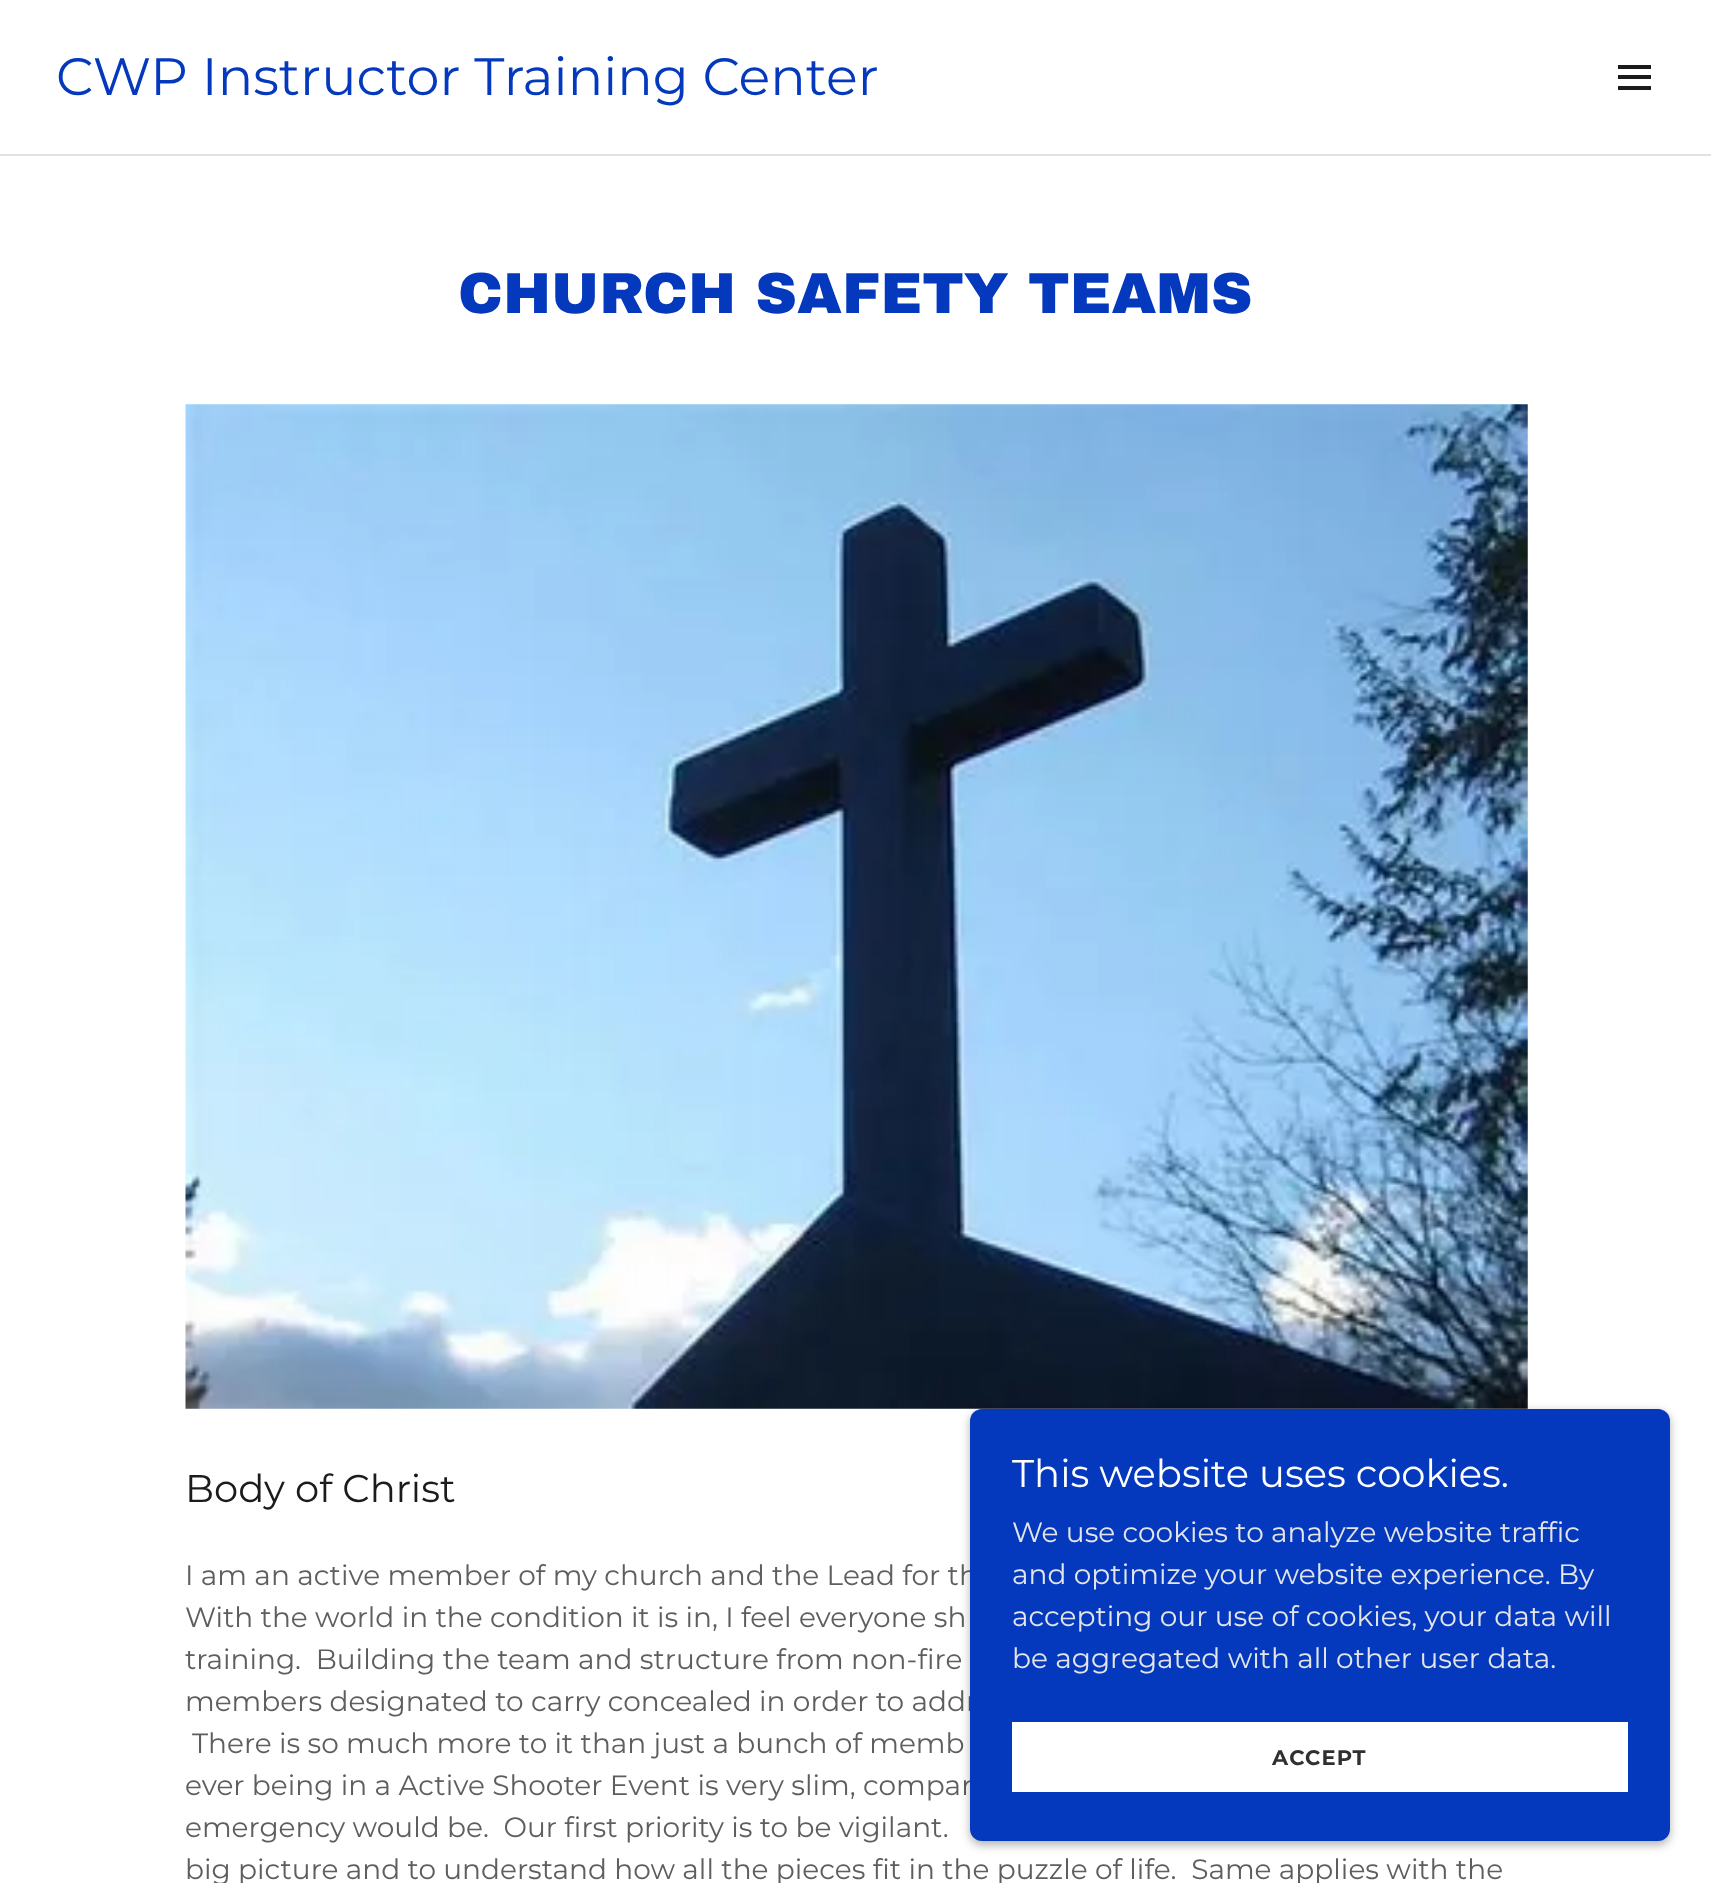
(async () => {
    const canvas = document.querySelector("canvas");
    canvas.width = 1711;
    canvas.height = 1883;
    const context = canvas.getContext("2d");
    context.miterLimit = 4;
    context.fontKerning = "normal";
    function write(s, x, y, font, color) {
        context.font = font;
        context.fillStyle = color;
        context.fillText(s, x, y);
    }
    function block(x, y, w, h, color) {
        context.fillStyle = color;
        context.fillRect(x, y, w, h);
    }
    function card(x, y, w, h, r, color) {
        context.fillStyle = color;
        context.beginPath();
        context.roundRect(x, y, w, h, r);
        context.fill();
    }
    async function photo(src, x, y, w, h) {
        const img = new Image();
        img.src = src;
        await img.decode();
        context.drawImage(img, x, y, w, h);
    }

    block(0, 0, 1711, 1883, "rgb(255, 255, 255)");
    write("CWP Instructor Training Center", 56, 95, "52.5px Montserrat", "rgb(4, 57, 189)");
    block(1618, 65, 33, 4, "rgb(27, 27, 27)");
    block(1618, 75, 33, 4, "rgb(27, 27, 27)");
    block(1618, 86, 33, 4, "rgb(27, 27, 27)");
    block(0, 154, 1711, 2, "rgb(226, 226, 226)");
    write("CHURCH SAFETY TEAMS", 458, 313, "900 57.75px Archivo Black", "rgb(4, 57, 189)");
    await photo("media/1.png", 185, 404, 1343, 1005);
    write("Body of Christ", 185, 1502, "38.5px Montserrat", "rgb(27, 27, 27)");
    write("I am an active member of my church and the Lead for th", 185, 1585, "28px Montserrat", "rgb(94, 94, 94)");
    write("With the world in the condition it is in, I feel everyone sh", 185, 1627, "28px Montserrat", "rgb(94, 94, 94)");
    write("training.  Building the team and structure from non-fire", 185, 1669, "28px Montserrat", "rgb(94, 94, 94)");
    write("members designated to carry concealed in order to addr", 185, 1711, "28px Montserrat", "rgb(94, 94, 94)");
    write("There is so much more to it than just a bunch of memb", 192, 1753, "28px Montserrat", "rgb(94, 94, 94)");
    write("ever being in a Active Shooter Event is very slim, compar", 185, 1795, "28px Montserrat", "rgb(94, 94, 94)");
    write("emergency would be.  Our first priority is to be vigilant.", 185, 1837, "28px Montserrat", "rgb(94, 94, 94)");
    write("big picture and to understand how all the pieces fit in the puzzle of life.  Same applies with the", 185, 1879, "28px Montserrat", "rgb(94, 94, 94)");
    context.fillStyle = "rgba(0, 0, 0, 0.3)";
    context.filter = "blur(5px)";
    context.beginPath();
    context.roundRect(970, 1412, 700, 433, 12);
    context.fill();
    context.filter = "none";
    card(970, 1409, 700, 432, 12, "rgb(4, 57, 189)");
    write("This website uses cookies.", 1012, 1487, "38.5px Montserrat", "rgb(255, 255, 255)");
    write("We use cookies to analyze website traffic", 1012, 1542, "28px Montserrat", "rgb(228, 229, 232)");
    write("and optimize your website experience. By", 1012, 1584, "28px Montserrat", "rgb(228, 229, 232)");
    write("accepting our use of cookies, your data will", 1012, 1626, "28px Montserrat", "rgb(228, 229, 232)");
    write("be aggregated with all other user data.", 1012, 1668, "28px Montserrat", "rgb(228, 229, 232)");
    block(1012, 1722, 616, 70, "rgb(255, 255, 255)");
    context.letterSpacing = "1.25px";
    write("ACCEPT", 1272, 1765, "bold 21px Montserrat", "rgb(48, 48, 48)");
})();
